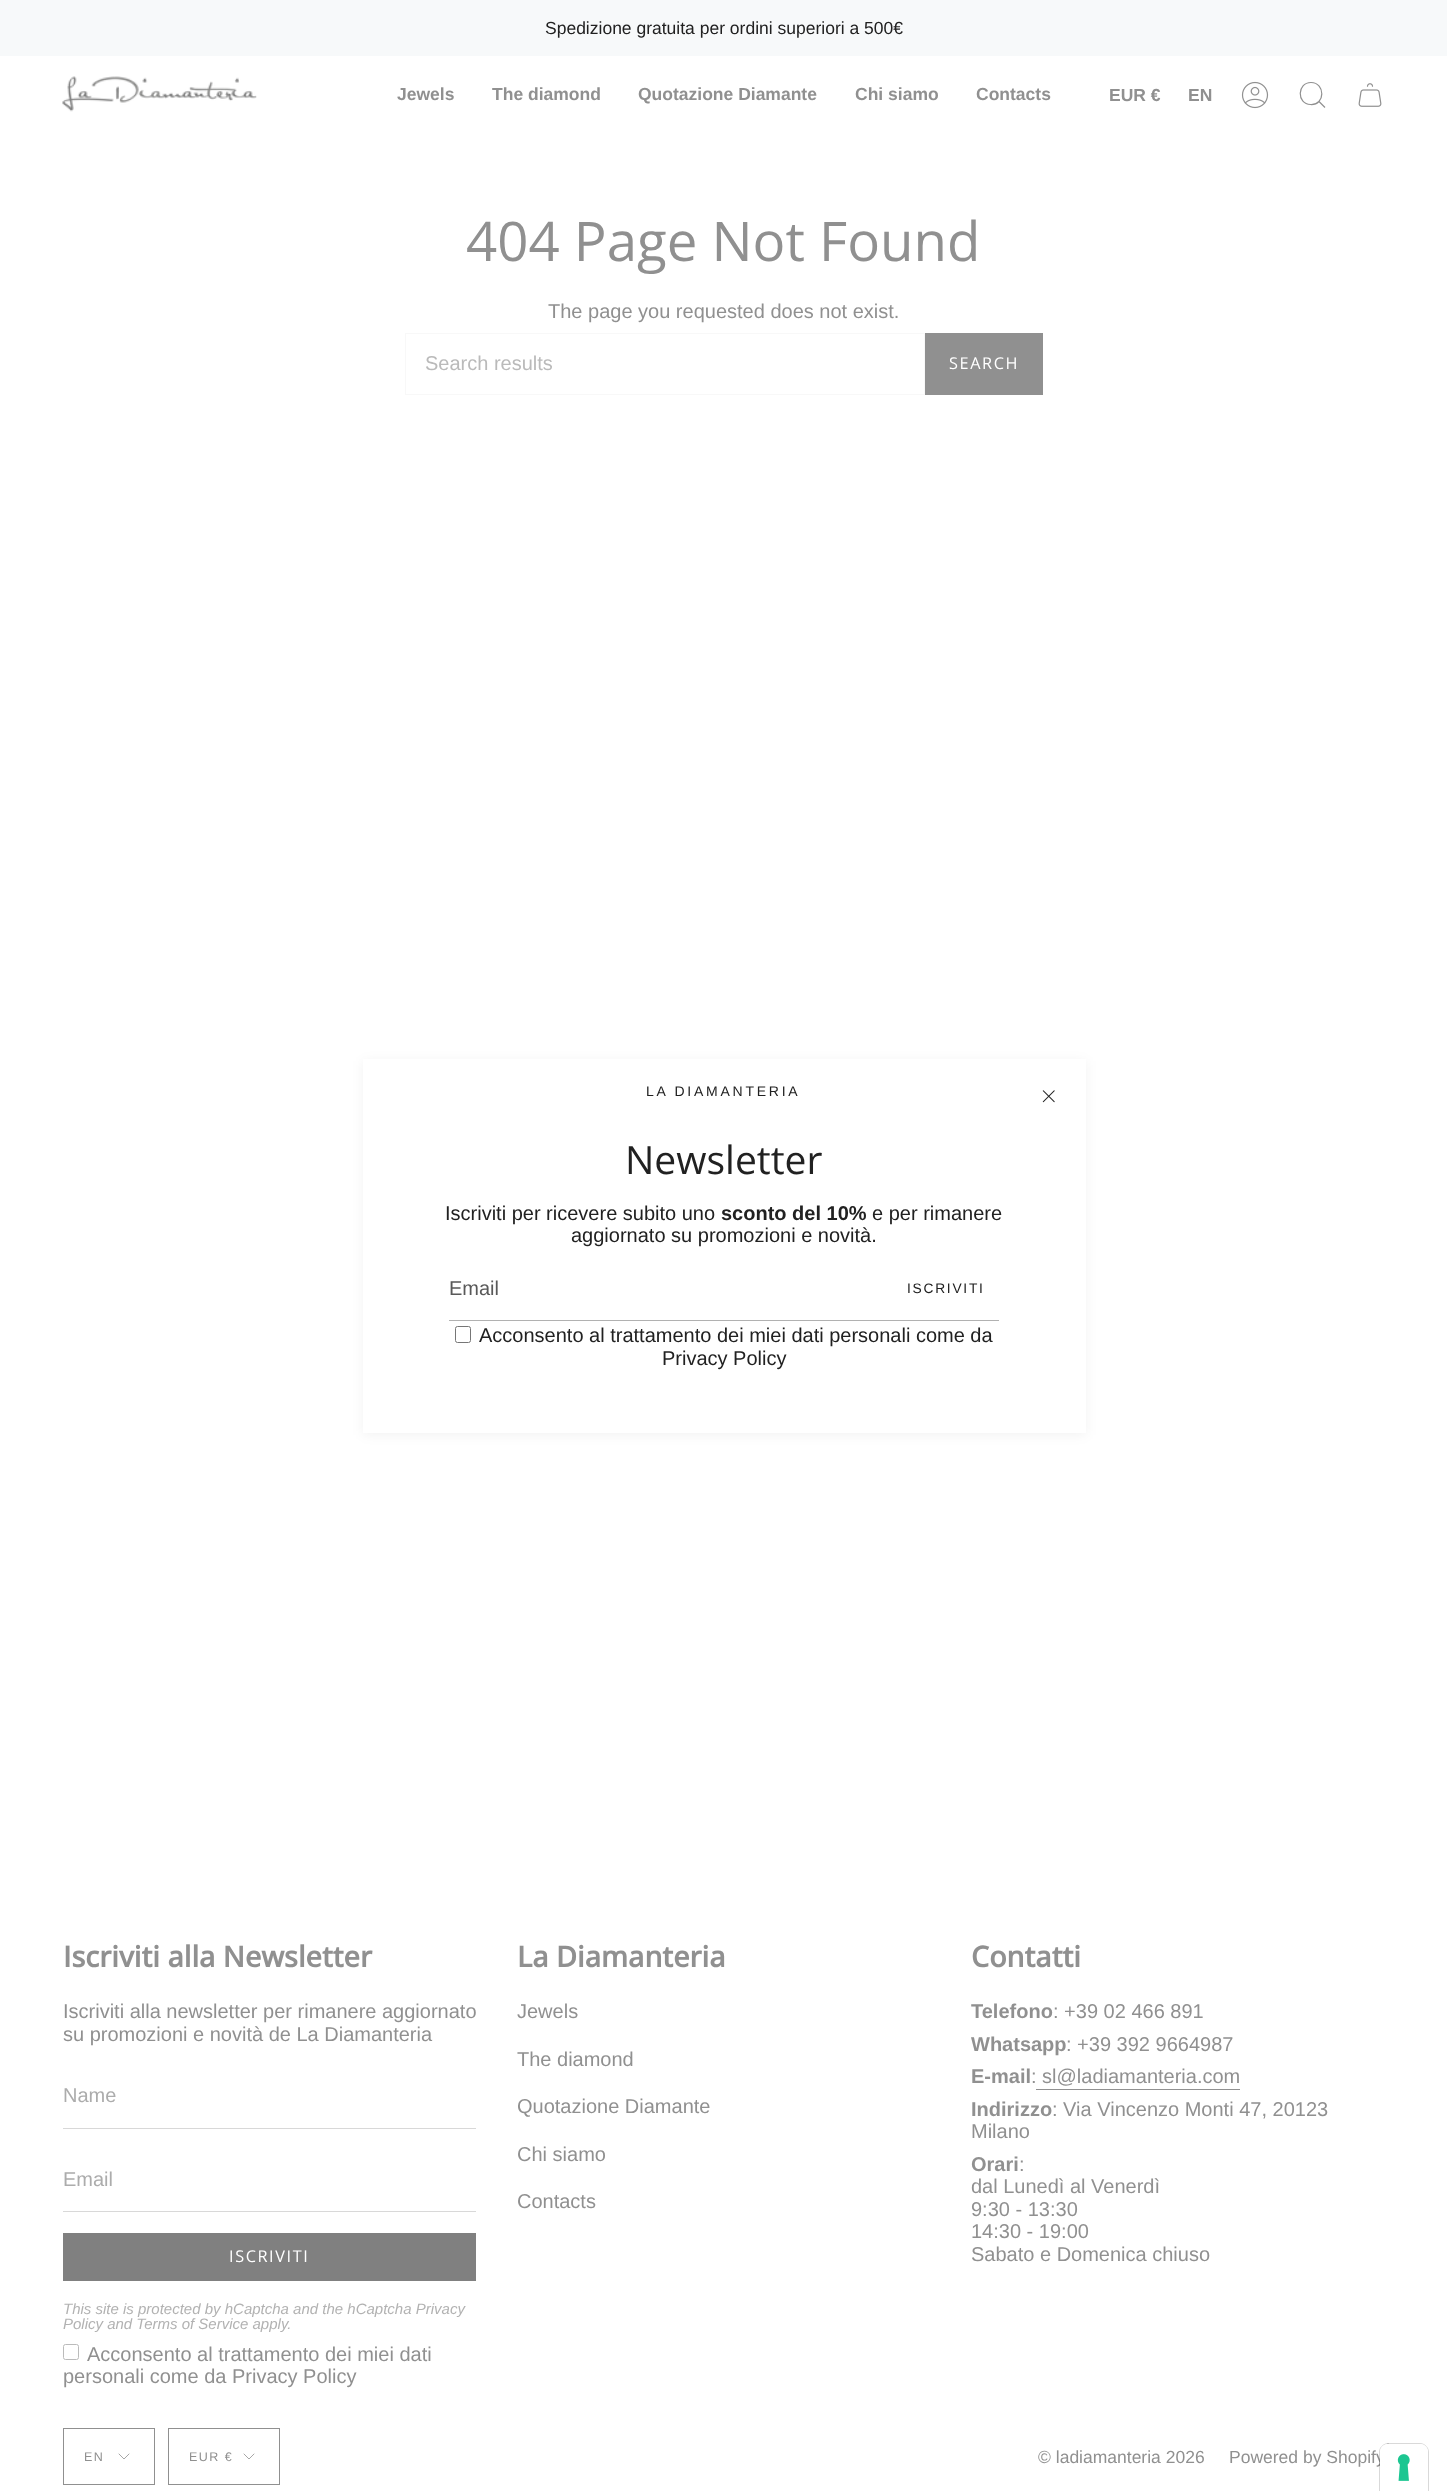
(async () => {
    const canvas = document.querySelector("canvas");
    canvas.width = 1447;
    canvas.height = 2491;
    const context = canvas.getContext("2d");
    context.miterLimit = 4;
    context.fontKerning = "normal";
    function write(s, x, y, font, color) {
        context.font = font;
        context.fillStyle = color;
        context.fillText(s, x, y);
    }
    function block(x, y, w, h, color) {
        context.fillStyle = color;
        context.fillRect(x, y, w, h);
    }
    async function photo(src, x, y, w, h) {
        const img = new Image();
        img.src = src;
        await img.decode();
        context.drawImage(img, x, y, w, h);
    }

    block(0, 0, 1447, 2491, "rgb(255, 255, 255)");
    block(0, 0, 1447, 56, "rgb(247, 249, 250)");
    write("Spedizione gratuita per ordini superiori a 500€", 545, 34, "17.5px Liberation Sans", "rgb(33, 33, 33)");
    await photo("media/1.png", 62, 76, 195, 36);
    write("Jewels", 397, 100, "bold 17.5px Liberation Sans", "rgb(144, 144, 144)");
    write("The diamond", 492, 100, "bold 17.5px Liberation Sans", "rgb(144, 144, 144)");
    write("Quotazione Diamante", 638, 100, "bold 17.5px Liberation Sans", "rgb(144, 144, 144)");
    write("Chi siamo", 855, 100, "bold 17.5px Liberation Sans", "rgb(144, 144, 144)");
    write("Contacts", 976, 100, "bold 17.5px Liberation Sans", "rgb(144, 144, 144)");
    write("EUR €", 1109, 101, "bold 17.5px Liberation Sans", "rgb(144, 144, 144)");
    write("EN", 1188, 101, "bold 17.5px Liberation Sans", "rgb(144, 144, 144)");
    await photo("media/2.png", 1241, 81, 28, 28);
    context.beginPath();
    context.moveTo(1311, 82.5);
    context.bezierCurveTo(1325.5, 82.5, 1325.5, 105.5, 1310.5, 104.5);
    context.bezierCurveTo(1296.5, 104, 1297, 82.5, 1311, 82.5);
    context.closePath();
    context.moveTo(1319, 101.5);
    context.lineTo(1325, 107.5);
    context.strokeStyle = "rgb(144, 144, 144)";
    context.lineWidth = 1.2;
    context.stroke();
    await photo("media/3.png", 1358, 83, 24, 24);
    write("404 Page Not Found", 466, 261, "54.6px Open Sans", "rgb(144, 144, 144)");
    write("The page you requested does not exist.", 548, 318, "20px Liberation Sans", "rgb(144, 144, 144)");
    context.strokeStyle = "rgb(248, 248, 248)";
    context.lineWidth = 1;
    context.strokeRect(405.5, 333.5, 519, 61);
    write("Search results", 425, 370, "20px Liberation Sans", "rgb(186, 186, 186)");
    block(925, 333, 118, 62, "rgb(144, 144, 144)");
    context.letterSpacing = "1.6px";
    write("SEARCH", 949, 369, "16.25px Open Sans", "rgb(255, 255, 255)");
    context.fillStyle = "rgba(0, 0, 0, 0.05)";
    context.filter = "blur(6px)";
    context.beginPath();
    context.rect(363, 1061, 723, 374);
    context.fill();
    context.filter = "none";
    block(363, 1059, 723, 374, "rgb(255, 255, 255)");
    context.letterSpacing = "2.75px";
    write("LA DIAMANTERIA", 646, 1096, "14px Liberation Sans", "rgb(33, 33, 33)");
    context.letterSpacing = "0px";
    write("Newsletter", 625, 1174, "39px Open Sans", "rgb(33, 33, 33)");
    write("Iscriviti per ricevere subito uno", 445, 1220, "20px Liberation Sans", "rgb(33, 33, 33)");
    write("sconto del 10%", 721, 1220, "bold 20px Liberation Sans", "rgb(33, 33, 33)");
    write("e per rimanere", 872, 1220, "20px Liberation Sans", "rgb(33, 33, 33)");
    write("aggiornato su promozioni e novità.", 571, 1242, "20px Liberation Sans", "rgb(33, 33, 33)");
    block(449, 1320, 550, 1, "rgb(177, 177, 177)");
    write("Email", 449, 1295, "20px Liberation Sans", "rgb(89, 89, 89)");
    context.letterSpacing = "1.75px";
    write("ISCRIVITI", 907, 1293, "13.75px Liberation Sans", "rgb(33, 33, 33)");
    context.beginPath();
    context.roundRect(455.5, 1326.5, 15, 16, 2);
    context.strokeStyle = "rgb(118, 118, 118)";
    context.stroke();
    context.letterSpacing = "0px";
    write("Acconsento al trattamento dei miei dati personali come da", 479, 1342, "20px Liberation Sans", "rgb(33, 33, 33)");
    write("Privacy Policy", 662, 1365, "20px Liberation Sans", "rgb(33, 33, 33)");
    await photo("media/4.png", 1042, 1090, 13, 13);
    write("Iscriviti alla Newsletter", 63, 1967, "bold 28.75px Open Sans", "rgb(144, 144, 144)");
    write("Iscriviti alla newsletter per rimanere aggiornato", 63, 2018, "20px Liberation Sans", "rgb(144, 144, 144)");
    write("su promozioni e novità de La Diamanteria", 63, 2041, "20px Liberation Sans", "rgb(144, 144, 144)");
    block(63, 2128, 413, 1, "rgb(216, 216, 216)");
    write("Name", 63, 2102, "20px Liberation Sans", "rgb(172, 172, 172)");
    block(63, 2211, 413, 1, "rgb(216, 216, 216)");
    write("Email", 63, 2186, "20px Liberation Sans", "rgb(172, 172, 172)");
    block(63, 2233, 413, 48, "rgb(128, 128, 128)");
    context.letterSpacing = "1.6px";
    write("ISCRIVITI", 229, 2262, "16.25px Open Sans", "rgb(255, 255, 255)");
    context.letterSpacing = "0px";
    write("This site is protected by hCaptcha and the hCaptcha Privacy", 63, 2314, "italic 15px Liberation Sans", "rgb(178, 178, 178)");
    write("Policy and Terms of Service apply.", 63, 2329, "italic 15px Liberation Sans", "rgb(178, 178, 178)");
    context.beginPath();
    context.roundRect(63.5, 2344.5, 15, 15, 2);
    context.strokeStyle = "rgb(187, 187, 187)";
    context.stroke();
    write("Acconsento al trattamento dei miei dati", 87, 2361, "20px Liberation Sans", "rgb(144, 144, 144)");
    write("personali come da Privacy Policy", 63, 2383, "20px Liberation Sans", "rgb(144, 144, 144)");
    write("La Diamanteria", 517, 1967, "bold 28.75px Open Sans", "rgb(144, 144, 144)");
    write("Jewels", 517, 2018, "20px Liberation Sans", "rgb(144, 144, 144)");
    write("The diamond", 517, 2066, "20px Liberation Sans", "rgb(144, 144, 144)");
    write("Quotazione Diamante", 517, 2113, "20px Liberation Sans", "rgb(144, 144, 144)");
    write("Chi siamo", 517, 2161, "20px Liberation Sans", "rgb(144, 144, 144)");
    write("Contacts", 517, 2208, "20px Liberation Sans", "rgb(144, 144, 144)");
    write("Contatti", 971, 1967, "bold 28.75px Open Sans", "rgb(144, 144, 144)");
    write("Telefono", 971, 2018, "bold 20px Liberation Sans", "rgb(144, 144, 144)");
    write(": +39 02 466 891", 1053, 2018, "20px Liberation Sans", "rgb(144, 144, 144)");
    write("Whatsapp", 971, 2051, "bold 20px Liberation Sans", "rgb(144, 144, 144)");
    write(": +39 392 9664987", 1066, 2051, "20px Liberation Sans", "rgb(144, 144, 144)");
    write("E-mail", 971, 2083, "bold 20px Liberation Sans", "rgb(144, 144, 144)");
    write(": sl@ladiamanteria.com", 1031, 2083, "20px Liberation Sans", "rgb(144, 144, 144)");
    block(1036, 2089, 204, 1, "rgb(144, 144, 144)");
    write("Indirizzo", 971, 2116, "bold 20px Liberation Sans", "rgb(144, 144, 144)");
    write(": Via Vincenzo Monti 47, 20123", 1052, 2116, "20px Liberation Sans", "rgb(144, 144, 144)");
    write("Milano", 971, 2138, "20px Liberation Sans", "rgb(144, 144, 144)");
    write("Orari", 971, 2171, "bold 20px Liberation Sans", "rgb(144, 144, 144)");
    write(":", 1019, 2171, "20px Liberation Sans", "rgb(144, 144, 144)");
    write("dal Lunedì al Venerdì", 971, 2193, "20px Liberation Sans", "rgb(144, 144, 144)");
    write("9:30 - 13:30", 971, 2216, "20px Liberation Sans", "rgb(144, 144, 144)");
    write("14:30 - 19:00", 971, 2238, "20px Liberation Sans", "rgb(144, 144, 144)");
    write("Sabato e Domenica chiuso", 971, 2261, "20px Liberation Sans", "rgb(144, 144, 144)");
    context.strokeStyle = "rgb(144, 144, 144)";
    context.strokeRect(63.5, 2428.5, 91, 56);
    context.letterSpacing = "1.5px";
    write("EN", 84, 2461, "12.5px Liberation Sans", "rgb(144, 144, 144)");
    context.beginPath();
    context.moveTo(119, 2454);
    context.lineTo(124, 2459);
    context.lineTo(129, 2454);
    context.lineWidth = 0.8;
    context.lineCap = "round";
    context.lineJoin = "round";
    context.stroke();
    context.lineWidth = 1;
    context.lineJoin = "miter";
    context.strokeRect(168.5, 2428.5, 111, 56);
    write("EUR €", 189, 2461, "12.5px Liberation Sans", "rgb(144, 144, 144)");
    context.beginPath();
    context.moveTo(244, 2454);
    context.lineTo(249, 2459);
    context.lineTo(254, 2454);
    context.lineWidth = 0.8;
    context.lineJoin = "round";
    context.stroke();
    context.letterSpacing = "0px";
    write("© ladiamanteria 2026", 1038, 2463, "17.5px Liberation Sans", "rgb(144, 144, 144)");
    write("Powered by Shopify", 1229, 2463, "17.5px Liberation Sans", "rgb(144, 144, 144)");
    context.beginPath();
    context.moveTo(1388, 2443.5);
    context.lineTo(1420, 2443.5);
    context.bezierCurveTo(1424.5, 2443.5, 1428.5, 2447.5, 1428.5, 2452);
    context.lineTo(1428.5, 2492.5);
    context.lineTo(1379.5, 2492.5);
    context.lineTo(1379.5, 2452);
    context.bezierCurveTo(1379.5, 2447.5, 1383.5, 2443.5, 1388, 2443.5);
    context.closePath();
    context.strokeStyle = "rgba(0, 0, 0, 0.15)";
    context.lineWidth = 1;
    context.lineJoin = "miter";
    context.stroke();
    context.fillStyle = "rgb(255, 255, 255)";
    context.beginPath();
    context.roundRect(1380, 2444, 48, 47, [8, 8, 0, 0]);
    context.fill();
    await photo("media/5.png", 1397, 2454, 13, 27);
})();
